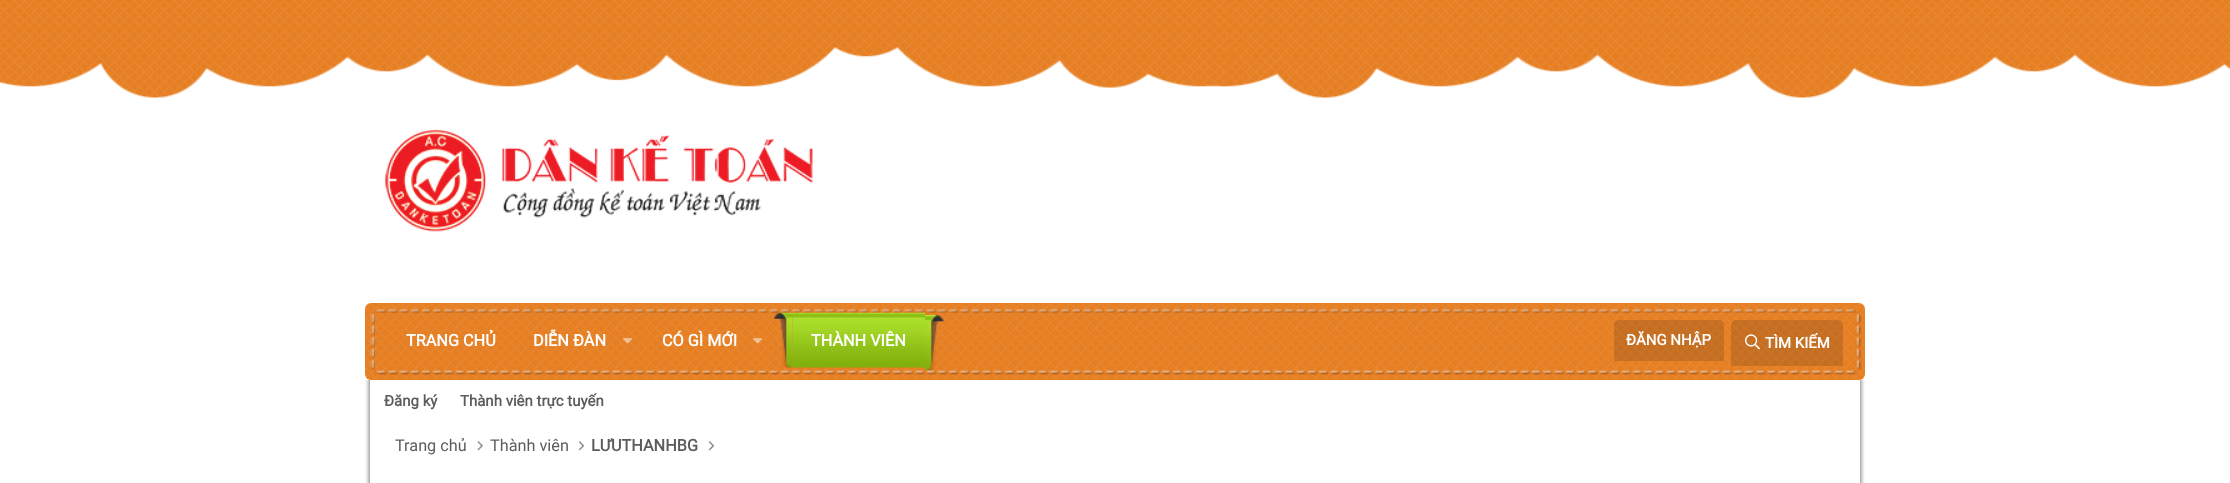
(async () => {
    const canvas = document.querySelector("canvas");
    canvas.width = 2230;
    canvas.height = 483;
    const context = canvas.getContext("2d");
    context.miterLimit = 4;
    context.fontKerning = "normal";
    function write(s, x, y, font, color) {
        context.font = font;
        context.fillStyle = color;
        context.fillText(s, x, y);
    }
    function block(x, y, w, h, color) {
        context.fillStyle = color;
        context.fillRect(x, y, w, h);
    }
    function card(x, y, w, h, r, color) {
        context.fillStyle = color;
        context.beginPath();
        context.roundRect(x, y, w, h, r);
        context.fill();
    }
    async function photo(src, x, y, w, h) {
        const img = new Image();
        img.src = src;
        await img.decode();
        context.drawImage(img, x, y, w, h);
    }

    block(0, 0, 2230, 483, "rgb(255, 255, 255)");
    await photo("media/1.png", 0, 0, 2230, 98);
    await photo("media/2.png", 384, 129, 429, 103);
    card(365, 303, 1500, 77, 6, "rgb(230, 126, 34)");
    await photo("media/3.png", 365, 303, 1500, 77);
    await photo("media/4.png", 370, 308, 1492, 67);
    write("TRANG CHỦ", 406, 346, "bold 16.25px Roboto", "rgb(255, 255, 255)");
    write("DIỄN ĐÀN", 533, 346, "bold 16.25px Roboto", "rgb(255, 255, 255)");
    await photo("media/5.png", 622, 338, 11, 6);
    write("CÓ GÌ MỚI", 662, 346, "bold 16.25px Roboto", "rgb(255, 255, 255)");
    await photo("media/6.png", 752, 338, 11, 6);
    await photo("media/7.png", 773, 312, 20, 56);
    await photo("media/8.png", 792, 312, 133, 56);
    write("THÀNH VIÊN", 811, 346, "bold 16.25px Roboto", "rgb(255, 255, 255)");
    await photo("media/9.png", 925, 315, 19, 55);
    context.fillStyle = "rgba(20, 20, 20, 0.15)";
    context.beginPath();
    context.roundRect(1614, 320, 110, 41, [5, 5, 0, 0]);
    context.fill();
    write("ĐĂNG NHẬP", 1626, 345, "bold 15px Roboto", "rgb(255, 255, 255)");
    context.fillStyle = "rgba(20, 20, 20, 0.15)";
    context.beginPath();
    context.roundRect(1731, 320, 112, 46, [5, 5, 0, 0]);
    context.fill();
    await photo("media/10.png", 1745, 334, 15, 16);
    write("TÌM KIẾM", 1765, 348, "bold 15px Roboto", "rgb(255, 255, 255)");
    await photo("media/12.png", 365, 421, 1500, 62);
    await photo("media/11.png", 365, 380, 1500, 42);
    write("Đăng ký", 384, 406, "bold 15px Roboto", "rgb(92, 92, 92)");
    write("Thành viên trực tuyến", 460, 406, "bold 15px Roboto", "rgb(92, 92, 92)");
    write("Trang chủ", 395, 451, "16.25px Roboto", "rgb(92, 92, 92)");
    await photo("media/13.png", 477, 441, 6, 10);
    write("Thành viên", 490, 451, "16.25px Roboto", "rgb(92, 92, 92)");
    await photo("media/14.png", 578, 441, 7, 10);
    write("LƯUTHANHBG", 591, 451, "bold 16.25px Roboto", "rgb(92, 92, 92)");
    await photo("media/14.png", 708, 441, 7, 10);
})();
